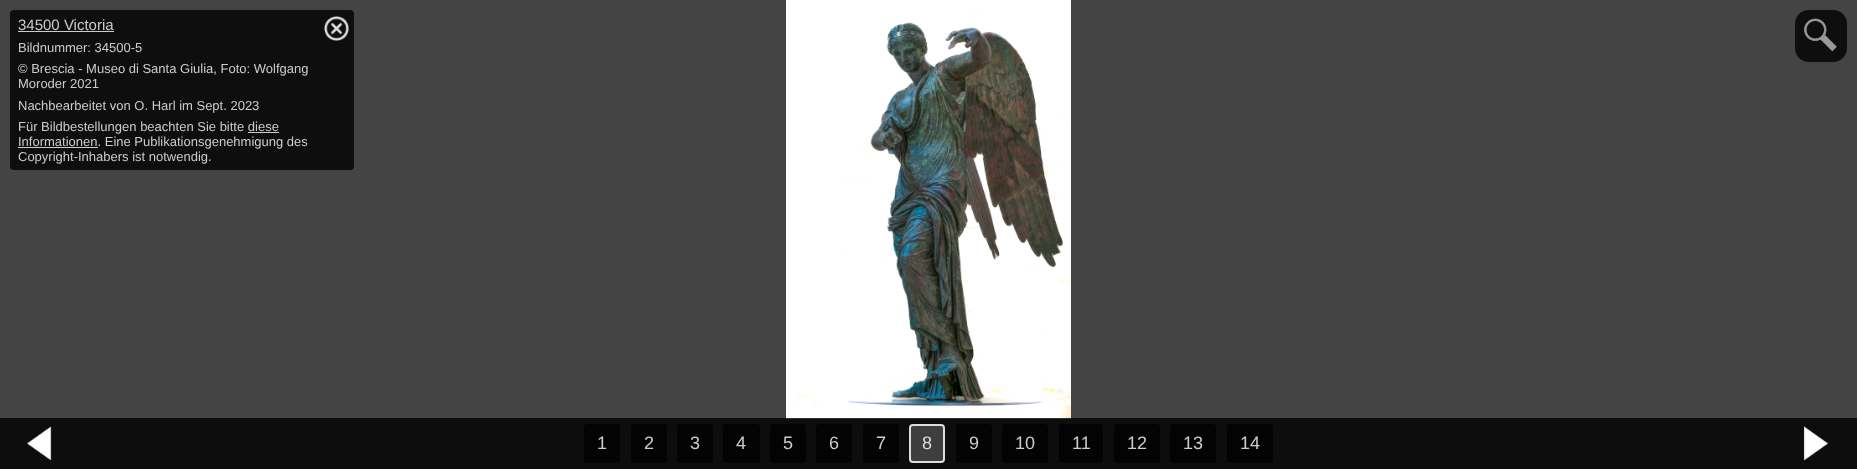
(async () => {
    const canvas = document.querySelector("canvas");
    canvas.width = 1857;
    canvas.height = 469;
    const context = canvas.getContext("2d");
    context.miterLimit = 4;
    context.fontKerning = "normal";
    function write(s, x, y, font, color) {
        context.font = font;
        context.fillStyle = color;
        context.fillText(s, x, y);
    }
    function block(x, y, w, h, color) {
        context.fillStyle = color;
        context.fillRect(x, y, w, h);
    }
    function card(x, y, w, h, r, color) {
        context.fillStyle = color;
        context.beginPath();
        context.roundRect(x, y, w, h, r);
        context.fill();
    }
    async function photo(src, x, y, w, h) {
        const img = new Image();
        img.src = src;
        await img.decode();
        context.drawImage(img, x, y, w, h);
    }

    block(0, 0, 1857, 469, "rgb(68, 68, 68)");
    card(10, 10, 344, 160, 4, "rgb(14, 14, 14)");
    write("34500 Victoria", 18, 30, "15px Liberation Sans", "rgb(204, 204, 204)");
    block(18, 31, 96, 1, "rgb(204, 204, 204)");
    await photo("media/1.png", 324, 16, 25, 25);
    write("Bildnummer: 34500-5", 18, 52, "13px Liberation Sans", "rgb(204, 204, 204)");
    write("© Brescia - Museo di Santa Giulia, Foto: Wolfgang", 18, 73, "13px Liberation Sans", "rgb(204, 204, 204)");
    write("Moroder 2021", 18, 88, "13px Liberation Sans", "rgb(204, 204, 204)");
    write("Nachbearbeitet von O. Harl im Sept. 2023", 18, 110, "13px Liberation Sans", "rgb(204, 204, 204)");
    write("Für Bildbestellungen beachten Sie bitte diese", 18, 131, "13px Liberation Sans", "rgb(204, 204, 204)");
    block(18, 147, 80, 1, "rgb(204, 204, 204)");
    write("Informationen. Eine Publikationsgenehmigung des", 18, 146, "13px Liberation Sans", "rgb(204, 204, 204)");
    block(248, 132, 31, 1, "rgb(204, 204, 204)");
    write("Copyright-Inhabers ist notwendig.", 18, 161, "13px Liberation Sans", "rgb(204, 204, 204)");
    await photo("media/2.png", 786, 0, 285, 419);
    card(1795, 10, 52, 52, 14, "rgb(14, 14, 14)");
    await photo("media/3.png", 1804, 18, 33, 34);
    block(0, 418, 1857, 51, "rgba(0, 0, 0, 0.8)");
    await photo("media/4.png", 27, 426, 25, 35);
    await photo("media/5.png", 1803, 426, 26, 35);
    card(584, 424, 36, 39, 4, "rgb(3, 3, 3)");
    write("1", 597, 449, "18px Liberation Sans", "rgb(204, 204, 204)");
    card(631, 424, 36, 39, 4, "rgb(3, 3, 3)");
    write("2", 644, 449, "18px Liberation Sans", "rgb(204, 204, 204)");
    card(677, 424, 36, 39, 4, "rgb(3, 3, 3)");
    write("3", 690, 449, "18px Liberation Sans", "rgb(204, 204, 204)");
    card(723, 424, 37, 39, 4, "rgb(3, 3, 3)");
    write("4", 736, 449, "18px Liberation Sans", "rgb(204, 204, 204)");
    card(770, 424, 36, 39, 4, "rgb(3, 3, 3)");
    write("5", 783, 449, "18px Liberation Sans", "rgb(204, 204, 204)");
    card(816, 424, 36, 39, 4, "rgb(3, 3, 3)");
    write("6", 829, 449, "18px Liberation Sans", "rgb(204, 204, 204)");
    card(863, 424, 36, 39, 4, "rgb(3, 3, 3)");
    write("7", 876, 449, "18px Liberation Sans", "rgb(204, 204, 204)");
    context.fillStyle = "rgb(62, 62, 62)";
    context.beginPath();
    context.roundRect(910, 425, 34, 37, 3);
    context.fill();
    context.strokeStyle = "rgb(221, 221, 221)";
    context.lineWidth = 2;
    context.stroke();
    write("8", 922, 449, "18px Liberation Sans", "rgb(221, 221, 221)");
    card(956, 424, 36, 39, 4, "rgb(3, 3, 3)");
    write("9", 969, 449, "18px Liberation Sans", "rgb(204, 204, 204)");
    card(1002, 424, 46, 39, 4, "rgb(3, 3, 3)");
    write("10", 1015, 449, "18px Liberation Sans", "rgb(204, 204, 204)");
    card(1059, 424, 44, 39, 4, "rgb(3, 3, 3)");
    write("11", 1072, 449, "18px Liberation Sans", "rgb(204, 204, 204)");
    card(1114, 424, 46, 39, 4, "rgb(3, 3, 3)");
    write("12", 1127, 449, "18px Liberation Sans", "rgb(204, 204, 204)");
    card(1170, 424, 46, 39, 4, "rgb(3, 3, 3)");
    write("13", 1183, 449, "18px Liberation Sans", "rgb(204, 204, 204)");
    card(1227, 424, 46, 39, 4, "rgb(3, 3, 3)");
    write("14", 1240, 449, "18px Liberation Sans", "rgb(204, 204, 204)");
})();
